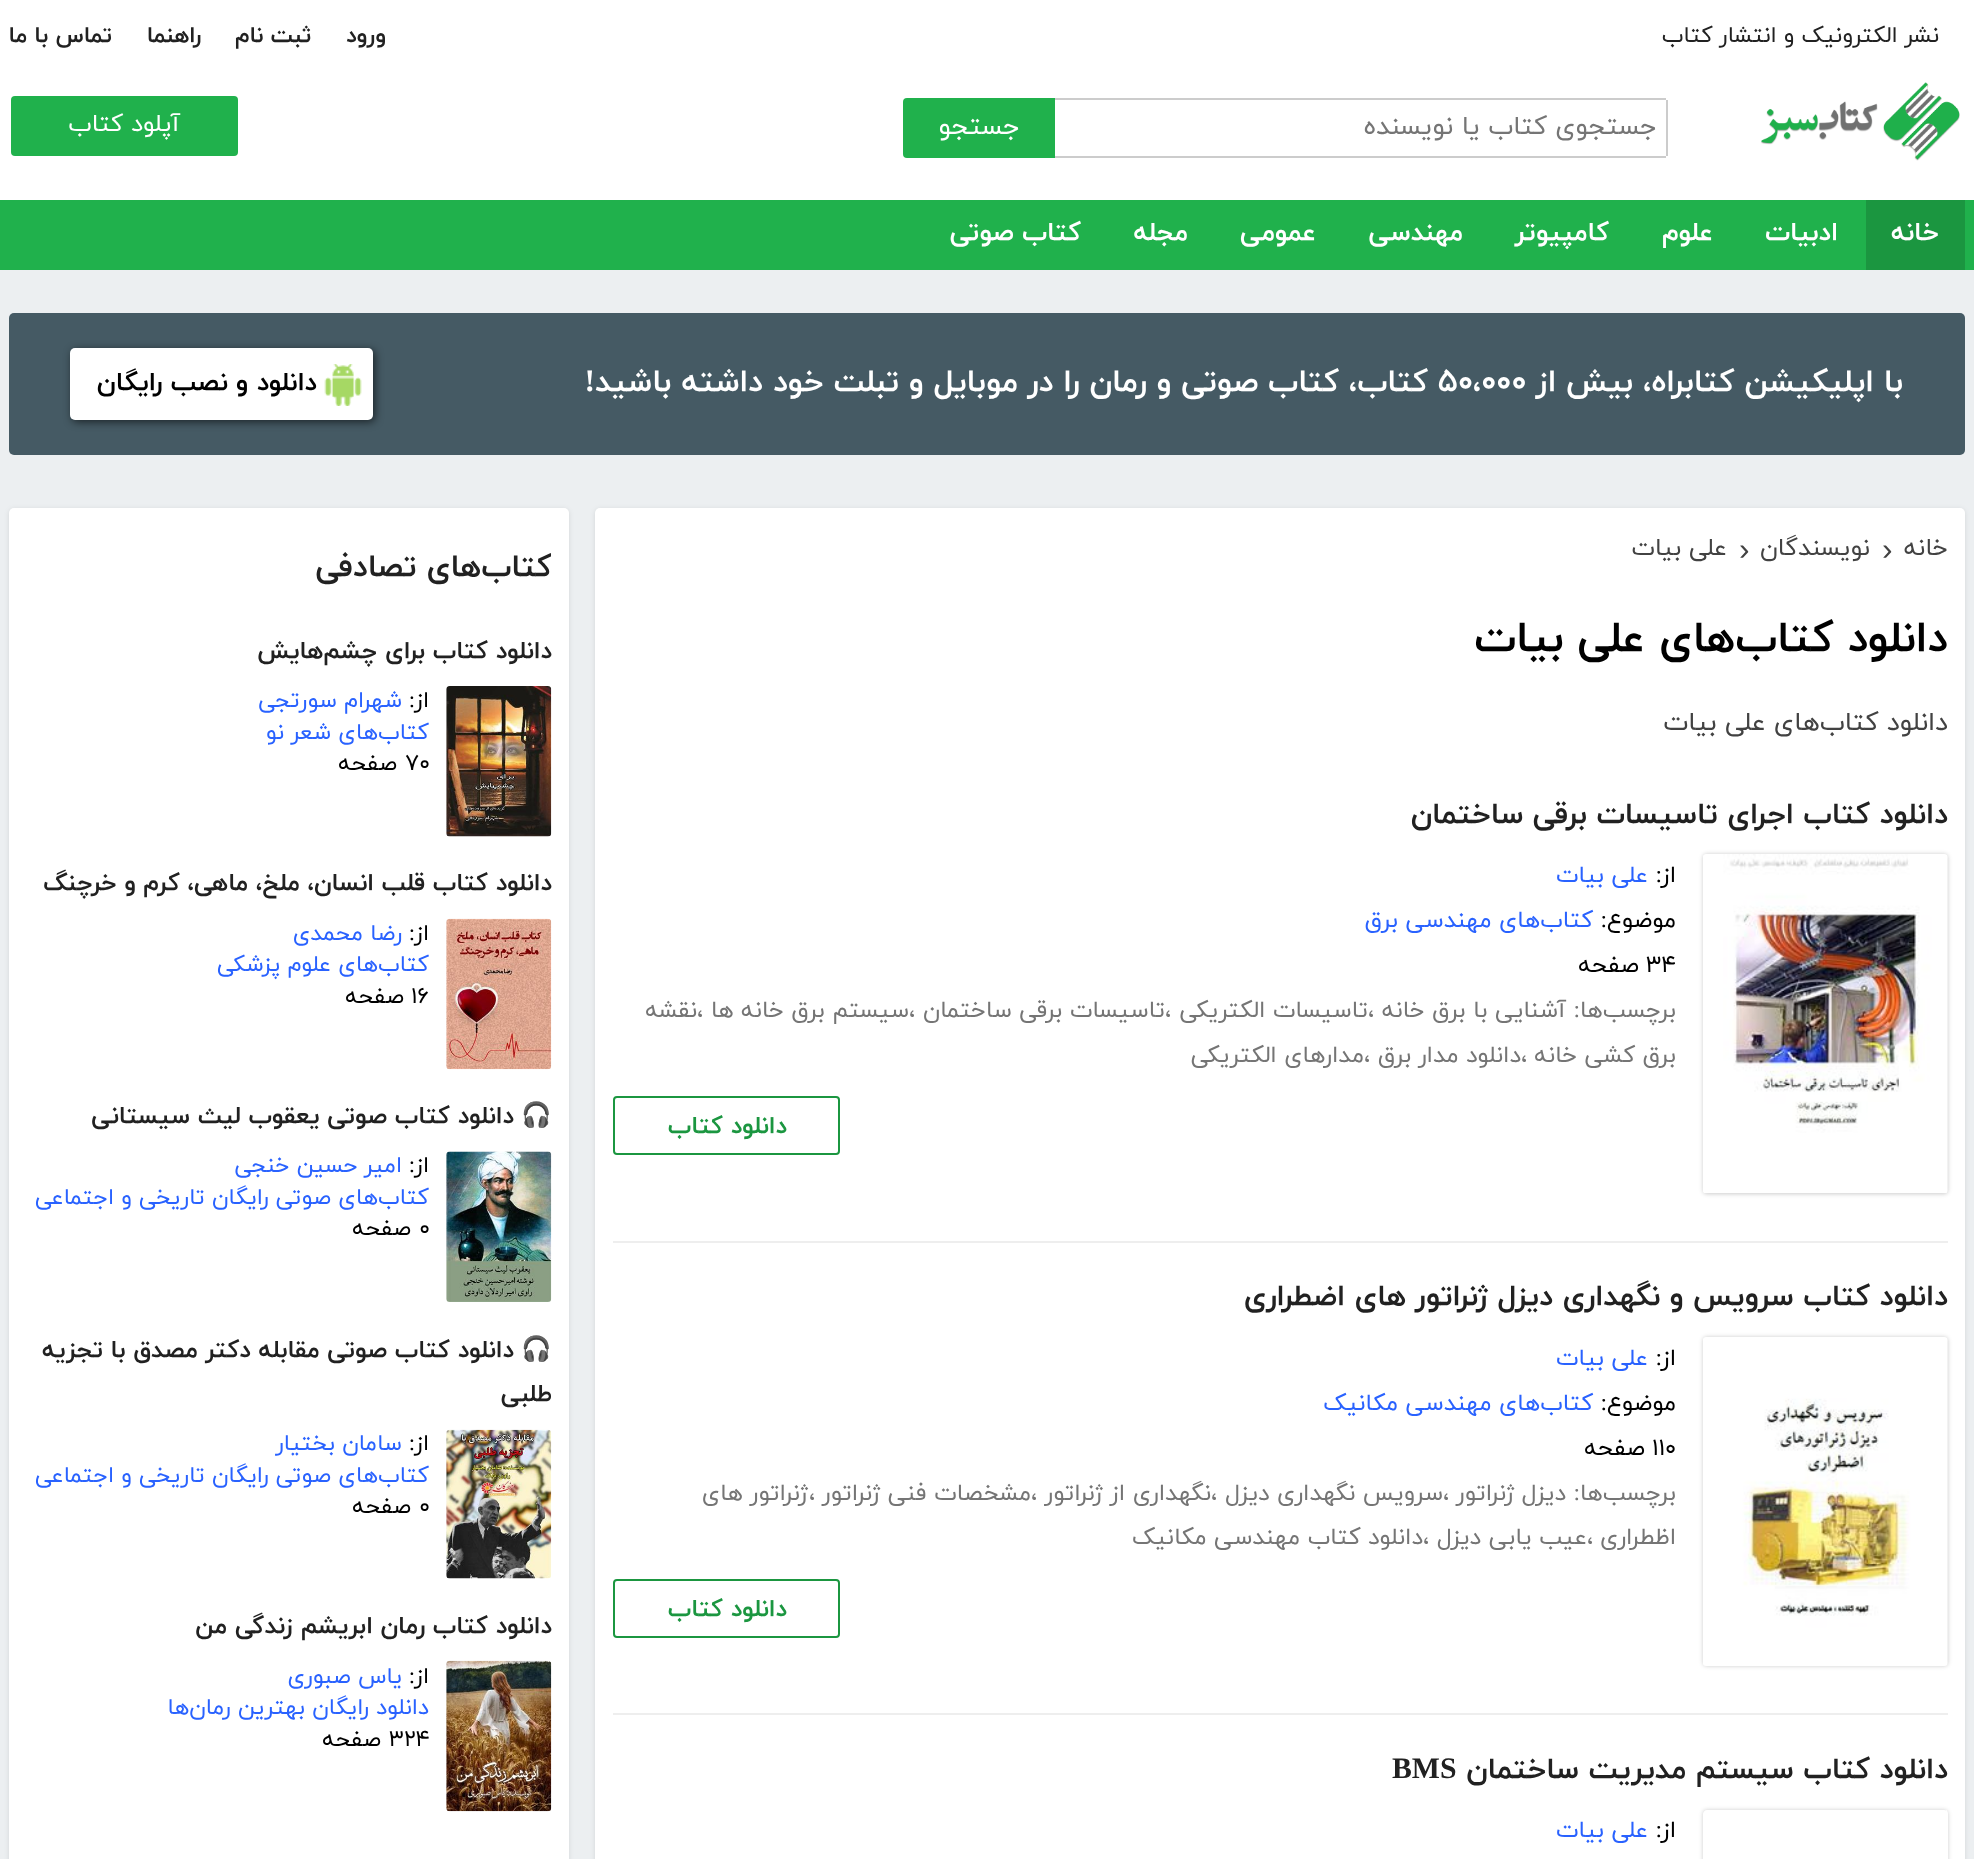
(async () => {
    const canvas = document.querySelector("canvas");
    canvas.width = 1974;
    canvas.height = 1859;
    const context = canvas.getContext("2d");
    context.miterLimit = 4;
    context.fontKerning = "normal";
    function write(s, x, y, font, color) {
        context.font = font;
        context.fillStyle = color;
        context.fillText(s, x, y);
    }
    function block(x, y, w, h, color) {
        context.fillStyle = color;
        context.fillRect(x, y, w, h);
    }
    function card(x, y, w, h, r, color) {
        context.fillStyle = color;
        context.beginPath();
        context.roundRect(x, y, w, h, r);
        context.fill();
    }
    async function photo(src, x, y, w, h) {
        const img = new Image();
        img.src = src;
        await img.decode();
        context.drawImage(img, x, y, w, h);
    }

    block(0, 0, 1974, 1859, "rgb(236, 239, 241)");
    block(0, 0, 1974, 200, "rgb(255, 255, 255)");
    context.direction = "rtl";
    write("نشر الکترونیک و انتشار کتاب", 1939, 42, "22.75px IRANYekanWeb", "rgb(33, 33, 33)");
    write("ورود", 386, 42, "bold 22.75px IRANYekanWeb", "rgb(33, 33, 33)");
    write("ثبت نام", 311, 42, "bold 22.75px IRANYekanWeb", "rgb(33, 33, 33)");
    write("راهنما", 201, 42, "bold 22.75px IRANYekanWeb", "rgb(33, 33, 33)");
    write("تماس با ما", 112, 42, "bold 22.75px IRANYekanWeb", "rgb(33, 33, 33)");
    await photo("media/1.png", 1761, 82, 199, 79);
    block(1055, 98, 611, 2, "rgb(204, 204, 204)");
    block(1666, 100, 2, 56, "rgb(204, 204, 204)");
    block(1055, 156, 611, 2, "rgb(204, 204, 204)");
    write("جستجوی کتاب یا نویسنده", 1657, 134, "26.25px IRANYekanWeb", "rgb(117, 117, 117)");
    context.fillStyle = "rgb(32, 177, 76)";
    context.beginPath();
    context.roundRect(903, 98, 152, 60, [4, 0, 0, 4]);
    context.fill();
    write("جستجو", 1020, 134, "26.25px IRANYekanWeb", "rgb(255, 255, 255)");
    card(11, 96, 227, 60, 4, "rgb(32, 177, 76)");
    write("آپلود کتاب", 180, 131, "24.5px IRANYekanWeb", "rgb(255, 255, 255)");
    block(0, 200, 1974, 70, "rgb(32, 177, 76)");
    block(1866, 200, 99, 70, "rgb(27, 150, 64)");
    write("خانه", 1939, 240, "bold 26.25px IRANYekanWeb", "rgb(255, 255, 255)");
    write("ادبیات", 1838, 240, "bold 26.25px IRANYekanWeb", "rgb(255, 255, 255)");
    write("علوم", 1713, 240, "bold 26.25px IRANYekanWeb", "rgb(255, 255, 255)");
    write("کامپیوتر", 1609, 240, "bold 26.25px IRANYekanWeb", "rgb(255, 255, 255)");
    write("مهندسی", 1463, 240, "bold 26.25px IRANYekanWeb", "rgb(255, 255, 255)");
    write("عمومی", 1316, 240, "bold 26.25px IRANYekanWeb", "rgb(255, 255, 255)");
    write("مجله", 1188, 240, "bold 26.25px IRANYekanWeb", "rgb(255, 255, 255)");
    write("کتاب صوتی", 1081, 240, "bold 26.25px IRANYekanWeb", "rgb(255, 255, 255)");
    card(9, 313, 1956, 142, 5, "rgb(69, 90, 100)");
    write("با اپلیکیشن کتابراه، بیش از", 1903, 391, "bold 31.5px IRANYekanWeb", "rgb(255, 255, 255)");
    context.direction = "ltr";
    write("۵۰،۰۰۰", 1438, 391, "bold 31.5px IRANYekanWeb", "rgb(255, 255, 255)");
    context.direction = "rtl";
    write("کتاب، کتاب صوتی و رمان را در موبایل و تبلت خود داشته باشید", 1428, 391, "bold 31.5px IRANYekanWeb", "rgb(255, 255, 255)");
    write("!", 595, 391, "bold 31.5px Liberation Serif", "rgb(255, 255, 255)");
    context.fillStyle = "rgba(0, 0, 0, 0.6)";
    context.filter = "blur(4.5px)";
    context.beginPath();
    context.roundRect(72, 350, 303, 72, 5);
    context.fill();
    context.filter = "none";
    card(70, 348, 303, 72, 5, "rgb(255, 255, 255)");
    await photo("media/2.png", 324, 364, 38, 42);
    write("دانلود و نصب رایگان", 317, 390, "bold 26.25px IRANYekanWeb", "rgb(0, 0, 0)");
    context.fillStyle = "rgba(0, 0, 0, 0.1)";
    context.filter = "blur(2.5px)";
    context.beginPath();
    context.roundRect(595, 509, 1370, 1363, 5);
    context.fill();
    context.filter = "none";
    card(595, 508, 1370, 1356, 5, "rgb(255, 255, 255)");
    write("خانه", 1948, 555, "24.5px IRANYekanWeb", "rgb(66, 66, 66)");
    context.direction = "ltr";
    write("›", 1882, 560, "31.5px Liberation Sans", "rgb(66, 66, 66)");
    context.direction = "rtl";
    write("نویسندگان", 1870, 555, "24.5px IRANYekanWeb", "rgb(66, 66, 66)");
    context.direction = "ltr";
    write("›", 1739, 560, "31.5px Liberation Sans", "rgb(66, 66, 66)");
    context.direction = "rtl";
    write("علی بیات", 1727, 555, "24.5px IRANYekanWeb", "rgb(66, 66, 66)");
    write("دانلود کتاب‌های علی بیات", 1948, 651, "bold 43.75px IRANYekanWeb", "rgb(0, 0, 0)");
    write("دانلود کتاب‌های علی بیات", 1948, 730, "26.25px IRANYekanWeb", "rgb(66, 66, 66)");
    write("دانلود کتاب اجرای تاسیسات برقی ساختمان", 1948, 823, "bold 29.75px IRANYekanWeb", "rgb(33, 33, 33)");
    context.fillStyle = "rgba(0, 0, 0, 0.2)";
    context.filter = "blur(2px)";
    context.beginPath();
    context.roundRect(1703, 854, 245, 340, 4);
    context.fill();
    context.filter = "none";
    await photo("media/3.png", 1703, 854, 245, 339);
    write("از", 1676, 882, "23.6px IRANYekanWeb", "rgb(0, 0, 0)");
    write(":", 1662, 882, "23.6px Liberation Serif", "rgb(0, 0, 0)");
    write("علی بیات", 1648, 882, "23.6px IRANYekanWeb", "rgb(41, 98, 255)");
    write("موضوع", 1676, 927, "23.6px IRANYekanWeb", "rgb(0, 0, 0)");
    write(":", 1607, 927, "23.6px Liberation Serif", "rgb(0, 0, 0)");
    write("کتاب‌های مهندسی برق", 1593, 927, "23.6px IRANYekanWeb", "rgb(41, 98, 255)");
    context.direction = "ltr";
    write("۳۴", 1646, 972, "23.6px IRANYekanWeb", "rgb(0, 0, 0)");
    context.direction = "rtl";
    write("صفحه", 1639, 972, "23.6px IRANYekanWeb", "rgb(0, 0, 0)");
    write("برچسب‌ها", 1676, 1017, "23.6px IRANYekanWeb", "rgb(117, 117, 117)");
    write(":", 1580, 1017, "23.6px Liberation Serif", "rgb(117, 117, 117)");
    write("آشنایی با برق خانه", 1566, 1017, "23.6px IRANYekanWeb", "rgb(117, 117, 117)");
    context.direction = "ltr";
    write("،", 1368, 1017, "23.6px IRANYekanWeb", "rgb(117, 117, 117)");
    context.direction = "rtl";
    write("تاسیسات الکتریکی", 1368, 1017, "23.6px IRANYekanWeb", "rgb(117, 117, 117)");
    context.direction = "ltr";
    write("،", 1165, 1017, "23.6px IRANYekanWeb", "rgb(117, 117, 117)");
    context.direction = "rtl";
    write("تاسیسات برقی ساختمان", 1165, 1017, "23.6px IRANYekanWeb", "rgb(117, 117, 117)");
    context.direction = "ltr";
    write("،", 909, 1017, "23.6px IRANYekanWeb", "rgb(117, 117, 117)");
    context.direction = "rtl";
    write("سیستم برق خانه ها", 909, 1017, "23.6px IRANYekanWeb", "rgb(117, 117, 117)");
    context.direction = "ltr";
    write("،", 697, 1017, "23.6px IRANYekanWeb", "rgb(117, 117, 117)");
    context.direction = "rtl";
    write("نقشه", 697, 1017, "23.6px IRANYekanWeb", "rgb(117, 117, 117)");
    write("برق کشی خانه", 1676, 1062, "23.6px IRANYekanWeb", "rgb(117, 117, 117)");
    context.direction = "ltr";
    write("،", 1521, 1062, "23.6px IRANYekanWeb", "rgb(117, 117, 117)");
    context.direction = "rtl";
    write("دانلود مدار برق", 1521, 1062, "23.6px IRANYekanWeb", "rgb(117, 117, 117)");
    context.direction = "ltr";
    write("،", 1364, 1062, "23.6px IRANYekanWeb", "rgb(117, 117, 117)");
    context.direction = "rtl";
    write("مدارهای الکتریکی", 1364, 1062, "23.6px IRANYekanWeb", "rgb(117, 117, 117)");
    context.beginPath();
    context.roundRect(614, 1097, 225, 57, 3);
    context.strokeStyle = "rgb(27, 150, 64)";
    context.lineWidth = 2;
    context.stroke();
    write("دانلود کتاب", 787, 1133, "bold 24.5px IRANYekanWeb", "rgb(27, 150, 64)");
    block(613, 1241, 1335, 2, "rgb(238, 238, 238)");
    write("دانلود کتاب سرویس و نگهداری دیزل ژنراتور های اضطراری", 1948, 1305, "bold 29.75px IRANYekanWeb", "rgb(33, 33, 33)");
    context.fillStyle = "rgba(0, 0, 0, 0.2)";
    context.filter = "blur(2px)";
    context.beginPath();
    context.roundRect(1703, 1337, 245, 329, 4);
    context.fill();
    context.filter = "none";
    await photo("media/4.png", 1703, 1337, 245, 329);
    write("از", 1676, 1365, "23.6px IRANYekanWeb", "rgb(0, 0, 0)");
    write(":", 1662, 1365, "23.6px Liberation Serif", "rgb(0, 0, 0)");
    write("علی بیات", 1648, 1365, "23.6px IRANYekanWeb", "rgb(41, 98, 255)");
    write("موضوع", 1676, 1410, "23.6px IRANYekanWeb", "rgb(0, 0, 0)");
    write(":", 1607, 1410, "23.6px Liberation Serif", "rgb(0, 0, 0)");
    write("کتاب‌های مهندسی مکانیک", 1593, 1410, "23.6px IRANYekanWeb", "rgb(41, 98, 255)");
    context.direction = "ltr";
    write("۱۱۰", 1652, 1455, "23.6px IRANYekanWeb", "rgb(0, 0, 0)");
    context.direction = "rtl";
    write("صفحه", 1645, 1455, "23.6px IRANYekanWeb", "rgb(0, 0, 0)");
    write("برچسب‌ها", 1676, 1500, "23.6px IRANYekanWeb", "rgb(117, 117, 117)");
    write(":", 1580, 1500, "23.6px Liberation Serif", "rgb(117, 117, 117)");
    write("دیزل ژنراتور", 1566, 1500, "23.6px IRANYekanWeb", "rgb(117, 117, 117)");
    context.direction = "ltr";
    write("،", 1443, 1500, "23.6px IRANYekanWeb", "rgb(117, 117, 117)");
    context.direction = "rtl";
    write("سرویس نگهداری دیزل", 1443, 1500, "23.6px IRANYekanWeb", "rgb(117, 117, 117)");
    context.direction = "ltr";
    write("،", 1211, 1500, "23.6px IRANYekanWeb", "rgb(117, 117, 117)");
    context.direction = "rtl";
    write("نگهداری از ژنراتور", 1211, 1500, "23.6px IRANYekanWeb", "rgb(117, 117, 117)");
    context.direction = "ltr";
    write("،", 1031, 1500, "23.6px IRANYekanWeb", "rgb(117, 117, 117)");
    context.direction = "rtl";
    write("مشخصات فنی ژنراتور", 1031, 1500, "23.6px IRANYekanWeb", "rgb(117, 117, 117)");
    context.direction = "ltr";
    write("،", 809, 1500, "23.6px IRANYekanWeb", "rgb(117, 117, 117)");
    context.direction = "rtl";
    write("ژنراتور های", 808, 1500, "23.6px IRANYekanWeb", "rgb(117, 117, 117)");
    write("اظطراری", 1676, 1544, "23.6px IRANYekanWeb", "rgb(117, 117, 117)");
    context.direction = "ltr";
    write("،", 1587, 1544, "23.6px IRANYekanWeb", "rgb(117, 117, 117)");
    context.direction = "rtl";
    write("عیب یابی دیزل", 1587, 1544, "23.6px IRANYekanWeb", "rgb(117, 117, 117)");
    context.direction = "ltr";
    write("،", 1423, 1544, "23.6px IRANYekanWeb", "rgb(117, 117, 117)");
    context.direction = "rtl";
    write("دانلود کتاب مهندسی مکانیک", 1423, 1544, "23.6px IRANYekanWeb", "rgb(117, 117, 117)");
    context.beginPath();
    context.roundRect(614, 1580, 225, 57, 3);
    context.stroke();
    write("دانلود کتاب", 787, 1616, "bold 24.5px IRANYekanWeb", "rgb(27, 150, 64)");
    block(613, 1713, 1335, 2, "rgb(238, 238, 238)");
    write("دانلود کتاب سیستم مدیریت ساختمان", 1948, 1778, "bold 29.75px IRANYekanWeb", "rgb(33, 33, 33)");
    context.direction = "ltr";
    write("BMS", 1392, 1778, "bold 29.75px Liberation Serif", "rgb(33, 33, 33)");
    context.save();
    context.beginPath();
    context.moveTo(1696, 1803);
    context.lineTo(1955, 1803);
    context.lineTo(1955, 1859);
    context.lineTo(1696, 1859);
    context.closePath();
    context.moveTo(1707, 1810);
    context.lineTo(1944, 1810);
    context.bezierCurveTo(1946, 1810, 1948, 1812, 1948, 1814);
    context.lineTo(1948, 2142);
    context.bezierCurveTo(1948, 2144, 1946, 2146, 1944, 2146);
    context.lineTo(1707, 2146);
    context.bezierCurveTo(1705, 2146, 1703, 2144, 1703, 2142);
    context.lineTo(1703, 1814);
    context.bezierCurveTo(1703, 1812, 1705, 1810, 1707, 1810);
    context.closePath();
    context.clip("evenodd");
    context.fillStyle = "rgba(0, 0, 0, 0.2)";
    context.filter = "blur(2px)";
    context.beginPath();
    context.roundRect(1703, 1810, 245, 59, 4);
    context.fill();
    context.filter = "none";
    context.restore();
    await photo("media/5.png", 1946, 1810, 2, 49);
    context.direction = "rtl";
    write("از", 1676, 1837, "23.6px IRANYekanWeb", "rgb(0, 0, 0)");
    write(":", 1662, 1837, "23.6px Liberation Serif", "rgb(0, 0, 0)");
    write("علی بیات", 1648, 1837, "23.6px IRANYekanWeb", "rgb(41, 98, 255)");
    context.fillStyle = "rgba(0, 0, 0, 0.1)";
    context.filter = "blur(2.5px)";
    context.beginPath();
    context.roundRect(9, 509, 560, 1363, 5);
    context.fill();
    context.filter = "none";
    card(9, 508, 560, 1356, 5, "rgb(255, 255, 255)");
    context.save();
    context.beginPath();
    context.rect(26, 525, 525, 88);
    context.clip();
    write("کتاب‌های تصادفی", 552, 576, "bold 31.5px IRANYekanWeb", "rgb(33, 33, 33)");
    context.restore();
    write("دانلود کتاب برای چشم‌هایش", 552, 658, "bold 24.5px IRANYekanWeb", "rgb(33, 33, 33)");
    await photo("media/6.png", 446, 686, 106, 151);
    write("از", 429, 707, "22.75px IRANYekanWeb", "rgb(0, 0, 0)");
    write(":", 415, 707, "22.75px Liberation Serif", "rgb(0, 0, 0)");
    write("شهرام سورتجی", 402, 707, "22.75px IRANYekanWeb", "rgb(41, 98, 255)");
    write("کتاب‌های شعر نو", 429, 739, "22.75px IRANYekanWeb", "rgb(41, 98, 255)");
    context.direction = "ltr";
    write("۷۰", 405, 770, "22.75px IRANYekanWeb", "rgb(0, 0, 0)");
    context.direction = "rtl";
    write("صفحه", 397, 770, "22.75px IRANYekanWeb", "rgb(0, 0, 0)");
    write("دانلود کتاب قلب انسان، ملخ، ماهی، کرم و خرچنگ", 552, 890, "bold 24.5px IRANYekanWeb", "rgb(33, 33, 33)");
    await photo("media/7.png", 446, 918, 106, 152);
    write("از", 429, 940, "22.75px IRANYekanWeb", "rgb(0, 0, 0)");
    write(":", 415, 940, "22.75px Liberation Serif", "rgb(0, 0, 0)");
    write("رضا محمدی", 402, 940, "22.75px IRANYekanWeb", "rgb(41, 98, 255)");
    write("کتاب‌های علوم پزشکی", 429, 971, "22.75px IRANYekanWeb", "rgb(41, 98, 255)");
    context.direction = "ltr";
    write("۱۶", 411, 1003, "22.75px IRANYekanWeb", "rgb(0, 0, 0)");
    context.direction = "rtl";
    write("صفحه", 404, 1003, "22.75px IRANYekanWeb", "rgb(0, 0, 0)");
    write("🎧", 552, 1123, "bold 24.5px Noto Color Emoji", "rgb(33, 33, 33)");
    write("دانلود کتاب صوتی یعقوب لیث سیستانی", 514, 1123, "bold 24.5px IRANYekanWeb", "rgb(33, 33, 33)");
    await photo("media/8.png", 446, 1151, 106, 151);
    write("از", 429, 1172, "22.75px IRANYekanWeb", "rgb(0, 0, 0)");
    write(":", 415, 1172, "22.75px Liberation Serif", "rgb(0, 0, 0)");
    write("امیر حسین خنجی", 402, 1172, "22.75px IRANYekanWeb", "rgb(41, 98, 255)");
    write("کتاب‌های صوتی رایگان تاریخی و اجتماعی", 429, 1204, "22.75px IRANYekanWeb", "rgb(41, 98, 255)");
    context.direction = "ltr";
    write("۰", 419, 1235, "22.75px IRANYekanWeb", "rgb(0, 0, 0)");
    context.direction = "rtl";
    write("صفحه", 411, 1235, "22.75px IRANYekanWeb", "rgb(0, 0, 0)");
    write("🎧", 552, 1357, "bold 24.5px Noto Color Emoji", "rgb(33, 33, 33)");
    write("دانلود کتاب صوتی مقابله دکتر مصدق با تجزیه", 514, 1357, "bold 24.5px IRANYekanWeb", "rgb(33, 33, 33)");
    write("طلبی", 552, 1401, "bold 24.5px IRANYekanWeb", "rgb(33, 33, 33)");
    await photo("media/9.png", 446, 1429, 106, 150);
    write("از", 429, 1450, "22.75px IRANYekanWeb", "rgb(0, 0, 0)");
    write(":", 415, 1450, "22.75px Liberation Serif", "rgb(0, 0, 0)");
    write("سامان بختیار", 402, 1450, "22.75px IRANYekanWeb", "rgb(41, 98, 255)");
    write("کتاب‌های صوتی رایگان تاریخی و اجتماعی", 429, 1482, "22.75px IRANYekanWeb", "rgb(41, 98, 255)");
    context.direction = "ltr";
    write("۰", 419, 1513, "22.75px IRANYekanWeb", "rgb(0, 0, 0)");
    context.direction = "rtl";
    write("صفحه", 411, 1513, "22.75px IRANYekanWeb", "rgb(0, 0, 0)");
    write("دانلود کتاب رمان ابریشم زندگی من", 552, 1633, "bold 24.5px IRANYekanWeb", "rgb(33, 33, 33)");
    await photo("media/10.png", 446, 1660, 106, 152);
    write("از", 429, 1683, "22.75px IRANYekanWeb", "rgb(0, 0, 0)");
    write(":", 415, 1683, "22.75px Liberation Serif", "rgb(0, 0, 0)");
    write("یاس صبوری", 402, 1683, "22.75px IRANYekanWeb", "rgb(41, 98, 255)");
    write("دانلود رایگان بهترین رمان‌ها", 429, 1714, "22.75px IRANYekanWeb", "rgb(41, 98, 255)");
    context.direction = "ltr";
    write("۳۲۴", 389, 1746, "22.75px IRANYekanWeb", "rgb(0, 0, 0)");
    context.direction = "rtl";
    write("صفحه", 381, 1746, "22.75px IRANYekanWeb", "rgb(0, 0, 0)");
})();
